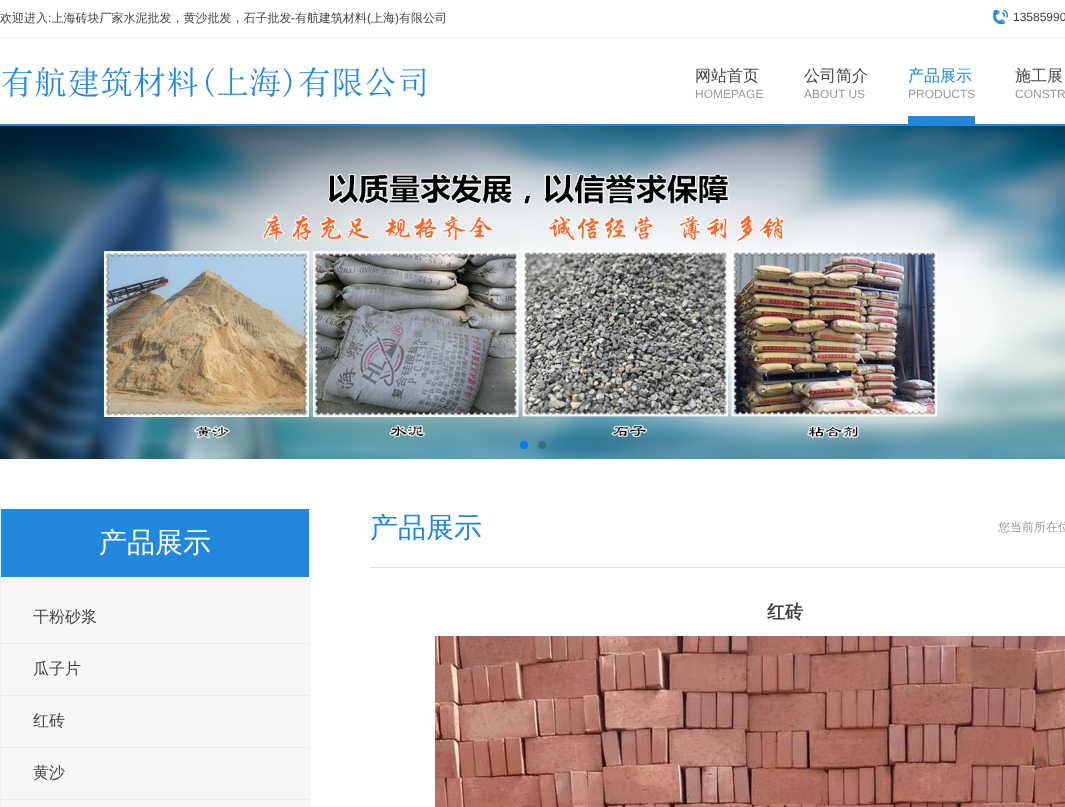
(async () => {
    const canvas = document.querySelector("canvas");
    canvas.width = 1065;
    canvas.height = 807;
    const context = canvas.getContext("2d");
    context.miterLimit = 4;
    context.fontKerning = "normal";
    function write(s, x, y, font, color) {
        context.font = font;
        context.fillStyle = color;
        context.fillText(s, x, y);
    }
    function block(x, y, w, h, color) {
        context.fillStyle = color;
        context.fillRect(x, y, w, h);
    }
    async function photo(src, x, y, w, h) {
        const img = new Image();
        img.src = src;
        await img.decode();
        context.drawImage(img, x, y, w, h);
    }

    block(0, 0, 1065, 807, "rgb(255, 255, 255)");
    block(0, 124, 1065, 2, "rgb(33, 135, 221)");
    block(0, 37, 1065, 1, "rgb(238, 238, 238)");
    write("欢迎进入 上海砖块厂家水泥批发，黄沙批发，石子批发", 0, 22, "500 12px WenQuanYi Zen Hei", "rgb(68, 68, 68)");
    write("有航建筑材料", 295, 22, "500 12px WenQuanYi Zen Hei", "rgb(68, 68, 68)");
    write("(", 367, 22, "12px Liberation Sans", "rgb(68, 68, 68)");
    write("上海", 371, 22, "500 12px WenQuanYi Zen Hei", "rgb(68, 68, 68)");
    write(")", 395, 22, "12px Liberation Sans", "rgb(68, 68, 68)");
    write("有限公司", 399, 22, "500 12px WenQuanYi Zen Hei", "rgb(68, 68, 68)");
    write(":", 48, 22, "12px Liberation Sans", "rgb(68, 68, 68)");
    write("-", 291, 22, "12px Liberation Sans", "rgb(68, 68, 68)");
    await photo("media/1.png", 993, 10, 15, 14);
    write("13585990", 1013, 21, "12px Liberation Sans", "rgb(68, 68, 68)");
    await photo("media/2.png", 2, 66, 424, 32);
    write("网站首页", 695, 81, "500 16px WenQuanYi Zen Hei", "rgb(68, 68, 68)");
    write("HOMEPAGE", 695, 98, "12px Liberation Sans", "rgb(153, 153, 153)");
    write("公司简介", 804, 81, "500 16px WenQuanYi Zen Hei", "rgb(68, 68, 68)");
    write("ABOUT US", 804, 98, "12px Liberation Sans", "rgb(153, 153, 153)");
    block(908, 116, 67, 8, "rgb(33, 135, 221)");
    write("产品展示", 908, 81, "500 16px WenQuanYi Zen Hei", "rgb(33, 135, 221)");
    write("PRODUCTS", 908, 98, "12px Liberation Sans", "rgb(153, 153, 153)");
    write("施工展", 1015, 81, "500 16px WenQuanYi Zen Hei", "rgb(68, 68, 68)");
    write("CONSTR", 1015, 98, "12px Liberation Sans", "rgb(153, 153, 153)");
    await photo("media/3.png", 0, 126, 1065, 333);
    context.fillStyle = "rgb(0, 122, 255)";
    context.beginPath();
    context.arc(524, 445, 4, 0, Math.PI * 2);
    context.fill();
    context.fillStyle = "rgba(0, 0, 0, 0.2)";
    context.beginPath();
    context.arc(542, 445, 4, 0, Math.PI * 2);
    context.fill();
    context.fillStyle = "rgb(238, 238, 238)";
    context.beginPath();
    context.moveTo(310, 509);
    context.lineTo(310, 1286);
    context.lineTo(309, 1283);
    context.lineTo(309, 509);
    context.closePath();
    context.fill();
    context.beginPath();
    context.moveTo(0, 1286);
    context.lineTo(0, 509);
    context.lineTo(1, 509);
    context.lineTo(1, 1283);
    context.closePath();
    context.fill();
    block(1, 509, 308, 68, "rgb(33, 135, 221)");
    write("产品展示", 99, 552, "500 28px WenQuanYi Zen Hei", "rgb(255, 255, 255)");
    block(1, 577, 308, 230, "rgb(246, 246, 246)");
    context.beginPath();
    context.moveTo(1, 643.5);
    context.lineTo(309, 643.5);
    context.strokeStyle = "rgb(221, 221, 221)";
    context.setLineDash([1, 1]);
    context.stroke();
    write("干粉砂浆", 33, 622, "500 16px WenQuanYi Zen Hei", "rgb(68, 68, 68)");
    context.beginPath();
    context.moveTo(1, 695.5);
    context.lineTo(309, 695.5);
    context.stroke();
    write("瓜子片", 33, 674, "500 16px WenQuanYi Zen Hei", "rgb(68, 68, 68)");
    context.beginPath();
    context.moveTo(1, 747.5);
    context.lineTo(309, 747.5);
    context.stroke();
    write("红砖", 33, 726, "500 16px WenQuanYi Zen Hei", "rgb(68, 68, 68)");
    context.beginPath();
    context.moveTo(1, 799.5);
    context.lineTo(309, 799.5);
    context.stroke();
    write("黄沙", 33, 778, "500 16px WenQuanYi Zen Hei", "rgb(68, 68, 68)");
    block(370, 567, 695, 1, "rgb(221, 221, 221)");
    write("产品展示", 370, 537, "500 28px WenQuanYi Zen Hei", "rgb(33, 135, 221)");
    write("您当前所在位", 998, 531, "500 12px WenQuanYi Zen Hei", "rgb(153, 153, 153)");
    write("红砖", 767, 618, "bold 18px WenQuanYi Zen Hei", "rgb(68, 68, 68)");
    await photo("media/4.png", 435, 636, 630, 171);
})();
